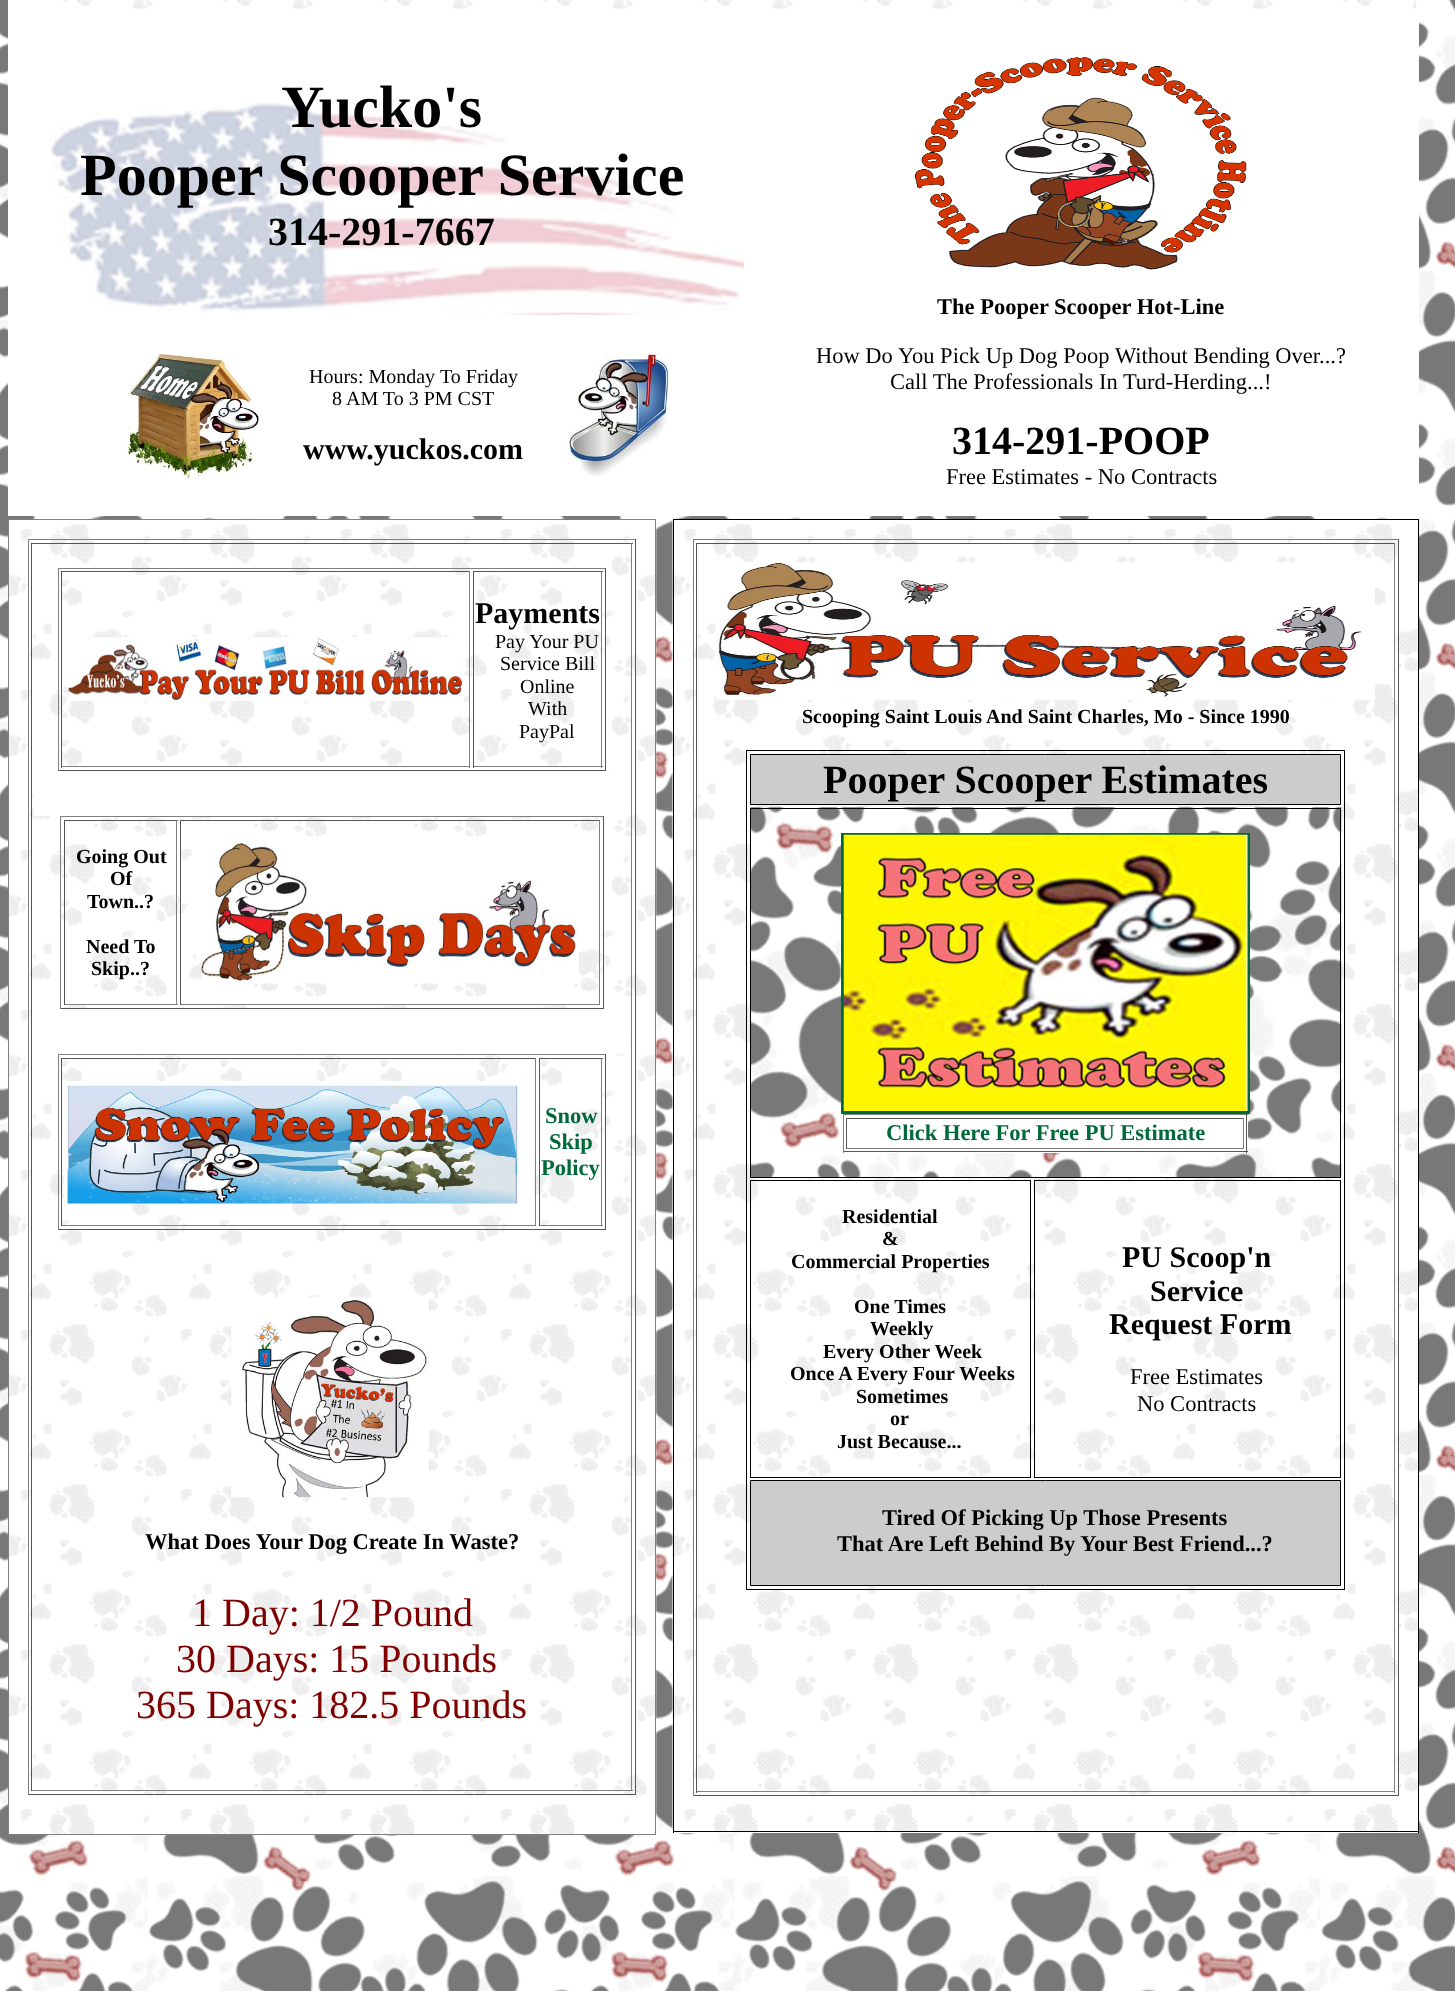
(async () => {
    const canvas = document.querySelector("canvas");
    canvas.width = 1455;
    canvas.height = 1991;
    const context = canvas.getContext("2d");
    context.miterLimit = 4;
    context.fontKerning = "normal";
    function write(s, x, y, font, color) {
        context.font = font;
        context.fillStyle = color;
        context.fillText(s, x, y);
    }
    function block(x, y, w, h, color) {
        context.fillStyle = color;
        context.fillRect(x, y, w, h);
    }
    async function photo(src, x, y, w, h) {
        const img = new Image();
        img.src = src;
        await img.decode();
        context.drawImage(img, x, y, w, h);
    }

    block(0, 0, 1455, 1991, "rgb(255, 255, 255)");
    await photo("media/1.png", 0, 0, 1455, 1991);
    block(8, 0, 1411, 516, "rgb(255, 255, 255)");
    await photo("media/2.png", 62, 0, 1355, 9);
    await photo("media/3.png", 50, 101, 694, 214);
    write("Yucko's", 281, 127, "bold 60px Liberation Serif", "rgb(0, 0, 0)");
    write("Pooper Scooper Service", 80, 195, "bold 60px Liberation Serif", "rgb(0, 0, 0)");
    write("314-291-7667", 268, 245, "bold 40px Liberation Serif", "rgb(0, 0, 0)");
    await photo("media/4.png", 915, 57, 332, 213);
    write("The Pooper Scooper Hot-Line", 937, 314, "bold 22.5px Liberation Serif", "rgb(0, 0, 0)");
    write("How Do", 816, 363, "22.5px Liberation Serif", "rgb(0, 0, 0)");
    write("You Pick Up Dog Poop", 898, 363, "22.5px Liberation Serif", "rgb(0, 0, 0)");
    write("Without Bending Over...?", 1115, 363, "22.5px Liberation Serif", "rgb(0, 0, 0)");
    write("Call The Professionals In Turd-Herding...!", 890, 389, "22.5px Liberation Serif", "rgb(0, 0, 0)");
    write("314-291-POOP", 952, 454, "bold 40px Liberation Serif", "rgb(0, 0, 0)");
    write("Free Estimates - No Contracts", 946, 484, "22.5px Liberation Serif", "rgb(0, 0, 0)");
    await photo("media/5.png", 127, 353, 132, 126);
    write("Hours: Monday", 309, 383, "20px Liberation Serif", "rgb(0, 0, 0)");
    write("To Friday", 440, 383, "20px Liberation Serif", "rgb(0, 0, 0)");
    write("8", 332, 405, "20px Liberation Serif", "rgb(0, 0, 0)");
    write("AM To 3 PM CST", 346, 405, "20px Liberation Serif", "rgb(0, 0, 0)");
    write("www.yuckos.com", 303, 459, "bold 30px Liberation Serif", "rgb(0, 0, 0)");
    await photo("media/6.png", 567, 353, 104, 124);
    block(9, 520, 614, 4, "rgb(255, 255, 255)");
    block(8, 519, 648, 1, "rgb(128, 128, 128)");
    await photo("media/7.png", 9, 524, 648, 1311);
    block(655, 519, 1, 1316, "rgb(128, 128, 128)");
    block(8, 1834, 648, 1, "rgb(128, 128, 128)");
    block(8, 519, 1, 1316, "rgb(128, 128, 128)");
    block(28, 539, 608, 1, "rgb(128, 128, 128)");
    block(635, 539, 1, 1256, "rgb(85, 85, 85)");
    block(28, 1794, 608, 1, "rgb(85, 85, 85)");
    block(28, 539, 1, 1256, "rgb(128, 128, 128)");
    block(31, 543, 602, 1, "rgb(85, 85, 85)");
    block(631, 543, 1, 1248, "rgb(128, 128, 128)");
    block(31, 1790, 602, 1, "rgb(128, 128, 128)");
    block(31, 543, 1, 1248, "rgb(85, 85, 85)");
    block(58, 568, 548, 1, "rgb(128, 128, 128)");
    block(605, 568, 1, 203, "rgb(85, 85, 85)");
    block(58, 770, 548, 1, "rgb(85, 85, 85)");
    block(58, 568, 1, 203, "rgb(128, 128, 128)");
    block(61, 571, 409, 1, "rgb(85, 85, 85)");
    block(469, 571, 1, 197, "rgb(128, 128, 128)");
    block(61, 766, 409, 1, "rgb(128, 128, 128)");
    block(61, 571, 1, 197, "rgb(85, 85, 85)");
    await photo("media/8.png", 68, 637, 395, 64);
    block(473, 571, 130, 1, "rgb(85, 85, 85)");
    block(601, 571, 1, 197, "rgb(128, 128, 128)");
    block(473, 766, 130, 1, "rgb(128, 128, 128)");
    block(473, 571, 1, 197, "rgb(85, 85, 85)");
    write("Payments", 475, 623, "bold 30px Liberation Serif", "rgb(0, 0, 0)");
    write("Pay Your PU", 495, 648, "20px Liberation Serif", "rgb(0, 0, 0)");
    write("Service Bill", 500, 670, "20px Liberation Serif", "rgb(0, 0, 0)");
    write("Online", 520, 693, "20px Liberation Serif", "rgb(0, 0, 0)");
    write("With", 528, 715, "20px Liberation Serif", "rgb(0, 0, 0)");
    write("PayPal", 519, 738, "20px Liberation Serif", "rgb(0, 0, 0)");
    block(43, 771, 571, 23, "rgb(255, 255, 255)");
    block(34, 794, 596, 22, "rgb(255, 255, 255)");
    block(60, 816, 544, 1, "rgb(128, 128, 128)");
    block(603, 816, 1, 193, "rgb(85, 85, 85)");
    block(60, 1008, 544, 1, "rgb(85, 85, 85)");
    block(60, 816, 1, 193, "rgb(128, 128, 128)");
    block(64, 820, 114, 1, "rgb(85, 85, 85)");
    block(176, 820, 1, 185, "rgb(128, 128, 128)");
    block(64, 1004, 114, 1, "rgb(128, 128, 128)");
    block(64, 820, 1, 185, "rgb(85, 85, 85)");
    write("Going Out", 76, 863, "bold 20px Liberation Serif", "rgb(0, 0, 0)");
    write("Of", 110, 885, "bold 20px Liberation Serif", "rgb(0, 0, 0)");
    write("Town..?", 87, 908, "bold 20px Liberation Serif", "rgb(0, 0, 0)");
    write("Need To", 86, 953, "bold 20px Liberation Serif", "rgb(0, 0, 0)");
    write("Skip..?", 91, 975, "bold 20px Liberation Serif", "rgb(0, 0, 0)");
    block(180, 820, 420, 1, "rgb(85, 85, 85)");
    block(599, 820, 1, 185, "rgb(128, 128, 128)");
    block(180, 1004, 420, 1, "rgb(128, 128, 128)");
    block(180, 820, 1, 185, "rgb(85, 85, 85)");
    await photo("media/9.png", 201, 841, 378, 143);
    block(49, 1009, 581, 22, "rgb(255, 255, 255)");
    block(50, 1031, 580, 23, "rgb(255, 255, 255)");
    block(58, 1054, 548, 1, "rgb(128, 128, 128)");
    block(605, 1054, 1, 176, "rgb(85, 85, 85)");
    block(58, 1229, 548, 1, "rgb(85, 85, 85)");
    block(58, 1054, 1, 176, "rgb(128, 128, 128)");
    block(61, 1058, 475, 1, "rgb(85, 85, 85)");
    block(535, 1058, 1, 168, "rgb(128, 128, 128)");
    block(61, 1225, 475, 1, "rgb(128, 128, 128)");
    block(61, 1058, 1, 168, "rgb(85, 85, 85)");
    await photo("media/10.png", 63, 1081, 471, 123);
    block(539, 1058, 64, 1, "rgb(85, 85, 85)");
    block(601, 1058, 1, 168, "rgb(128, 128, 128)");
    block(539, 1225, 64, 1, "rgb(128, 128, 128)");
    block(539, 1058, 1, 168, "rgb(85, 85, 85)");
    write("Snow", 545, 1123, "bold 22.5px Liberation Serif", "rgb(0, 105, 57)");
    write("Skip", 549, 1149, "bold 22.5px Liberation Serif", "rgb(0, 105, 57)");
    write("Policy", 541, 1175, "bold 22.5px Liberation Serif", "rgb(0, 105, 57)");
    await photo("media/11.png", 231, 1297, 198, 201);
    write("What Does Your Dog Create In Waste?", 145, 1549, "bold 22.5px Liberation Serif", "rgb(0, 0, 0)");
    write("1 Day: 1/2 Pound", 192, 1626, "40px Liberation Serif", "rgb(128, 0, 0)");
    write("30 Days: 15 Pounds", 176, 1672, "40px Liberation Serif", "rgb(128, 0, 0)");
    write("365 Days: 182.5 Pounds", 136, 1718, "40px Liberation Serif", "rgb(128, 0, 0)");
    block(674, 520, 744, 1313, "rgb(255, 255, 255)");
    block(673, 519, 746, 1, "rgb(0, 0, 0)");
    block(1418, 519, 1, 1314, "rgb(0, 0, 0)");
    await photo("media/12.png", 672, 520, 746, 1313);
    block(673, 1831, 746, 1, "rgb(0, 0, 0)");
    block(673, 519, 1, 1314, "rgb(0, 0, 0)");
    block(693, 539, 706, 1, "rgb(128, 128, 128)");
    block(1398, 539, 1, 1257, "rgb(85, 85, 85)");
    block(693, 1795, 706, 1, "rgb(85, 85, 85)");
    block(693, 539, 1, 1257, "rgb(128, 128, 128)");
    block(696, 543, 699, 1, "rgb(85, 85, 85)");
    block(1394, 543, 1, 1250, "rgb(128, 128, 128)");
    block(696, 1791, 699, 1, "rgb(128, 128, 128)");
    block(696, 543, 1, 1250, "rgb(85, 85, 85)");
    await photo("media/13.png", 716, 562, 659, 138);
    write("Scooping Saint Louis And Saint Charles, Mo - Since 1990", 802, 723, "bold 20px Liberation Serif", "rgb(0, 0, 0)");
    context.strokeStyle = "rgb(0, 0, 0)";
    context.strokeRect(746.5, 750.5, 598, 839);
    context.fillStyle = "rgb(204, 204, 204)";
    context.beginPath();
    context.rect(750.5, 754.5, 590, 50);
    context.fill();
    context.stroke();
    write("Pooper Scooper Estimates", 823, 793, "bold 40px Liberation Serif", "rgb(0, 0, 0)");
    await photo("media/14.png", 750, 807, 592, 371);
    context.strokeRect(750.5, 808.5, 590, 369);
    context.strokeStyle = "rgb(0, 105, 57)";
    context.lineWidth = 3;
    context.strokeRect(842.5, 834.5, 406, 278);
    await photo("media/15.png", 843, 834, 405, 277);
    block(886, 1115, 362, 38, "rgb(255, 255, 255)");
    block(843, 1114, 405, 1, "rgb(128, 128, 128)");
    block(1246, 1114, 1, 39, "rgb(85, 85, 85)");
    block(843, 1151, 405, 1, "rgb(85, 85, 85)");
    block(843, 1114, 1, 39, "rgb(128, 128, 128)");
    block(846, 1118, 398, 1, "rgb(85, 85, 85)");
    block(1243, 1118, 1, 31, "rgb(128, 128, 128)");
    block(846, 1148, 398, 1, "rgb(128, 128, 128)");
    block(846, 1118, 1, 31, "rgb(85, 85, 85)");
    write("Click Here For Free PU Estimate", 886, 1140, "bold 22.5px Liberation Serif", "rgb(0, 105, 57)");
    context.strokeStyle = "rgb(0, 0, 0)";
    context.lineWidth = 1;
    context.strokeRect(750.5, 1180.5, 280, 297);
    write("Residential", 842, 1223, "bold 20px Liberation Serif", "rgb(0, 0, 0)");
    write("&", 882, 1245, "bold 20px Liberation Serif", "rgb(0, 0, 0)");
    write("Commercial Properties", 791, 1268, "bold 20px Liberation Serif", "rgb(0, 0, 0)");
    write("One Times", 854, 1313, "bold 20px Liberation Serif", "rgb(0, 0, 0)");
    write("Weekly", 870, 1335, "bold 20px Liberation Serif", "rgb(0, 0, 0)");
    write("Every Other Week", 823, 1358, "bold 20px Liberation Serif", "rgb(0, 0, 0)");
    write("Once A Every Four Weeks", 790, 1380, "bold 20px Liberation Serif", "rgb(0, 0, 0)");
    write("Sometimes", 856, 1403, "bold 20px Liberation Serif", "rgb(0, 0, 0)");
    write("or", 890, 1425, "bold 20px Liberation Serif", "rgb(0, 0, 0)");
    write("Just Because...", 837, 1448, "bold 20px Liberation Serif", "rgb(0, 0, 0)");
    context.strokeRect(1034.5, 1180.5, 306, 297);
    write("PU Scoop'n", 1122, 1267, "bold 30px Liberation Serif", "rgb(0, 0, 0)");
    write("Service", 1150, 1301, "bold 30px Liberation Serif", "rgb(0, 0, 0)");
    write("Request Form", 1109, 1334, "bold 30px Liberation Serif", "rgb(0, 0, 0)");
    write("Free Estimates", 1130, 1384, "22.5px Liberation Serif", "rgb(0, 0, 0)");
    write("No Contracts", 1137, 1411, "22.5px Liberation Serif", "rgb(0, 0, 0)");
    context.fillStyle = "rgb(204, 204, 204)";
    context.beginPath();
    context.rect(750.5, 1480.5, 590, 105);
    context.fill();
    context.stroke();
    write("Tired Of Picking Up Those Presents", 882, 1525, "bold 22.5px Liberation Serif", "rgb(0, 0, 0)");
    write("That Are Left Behind By Your Best Friend...?", 837, 1551, "bold 22.5px Liberation Serif", "rgb(0, 0, 0)");
})();
